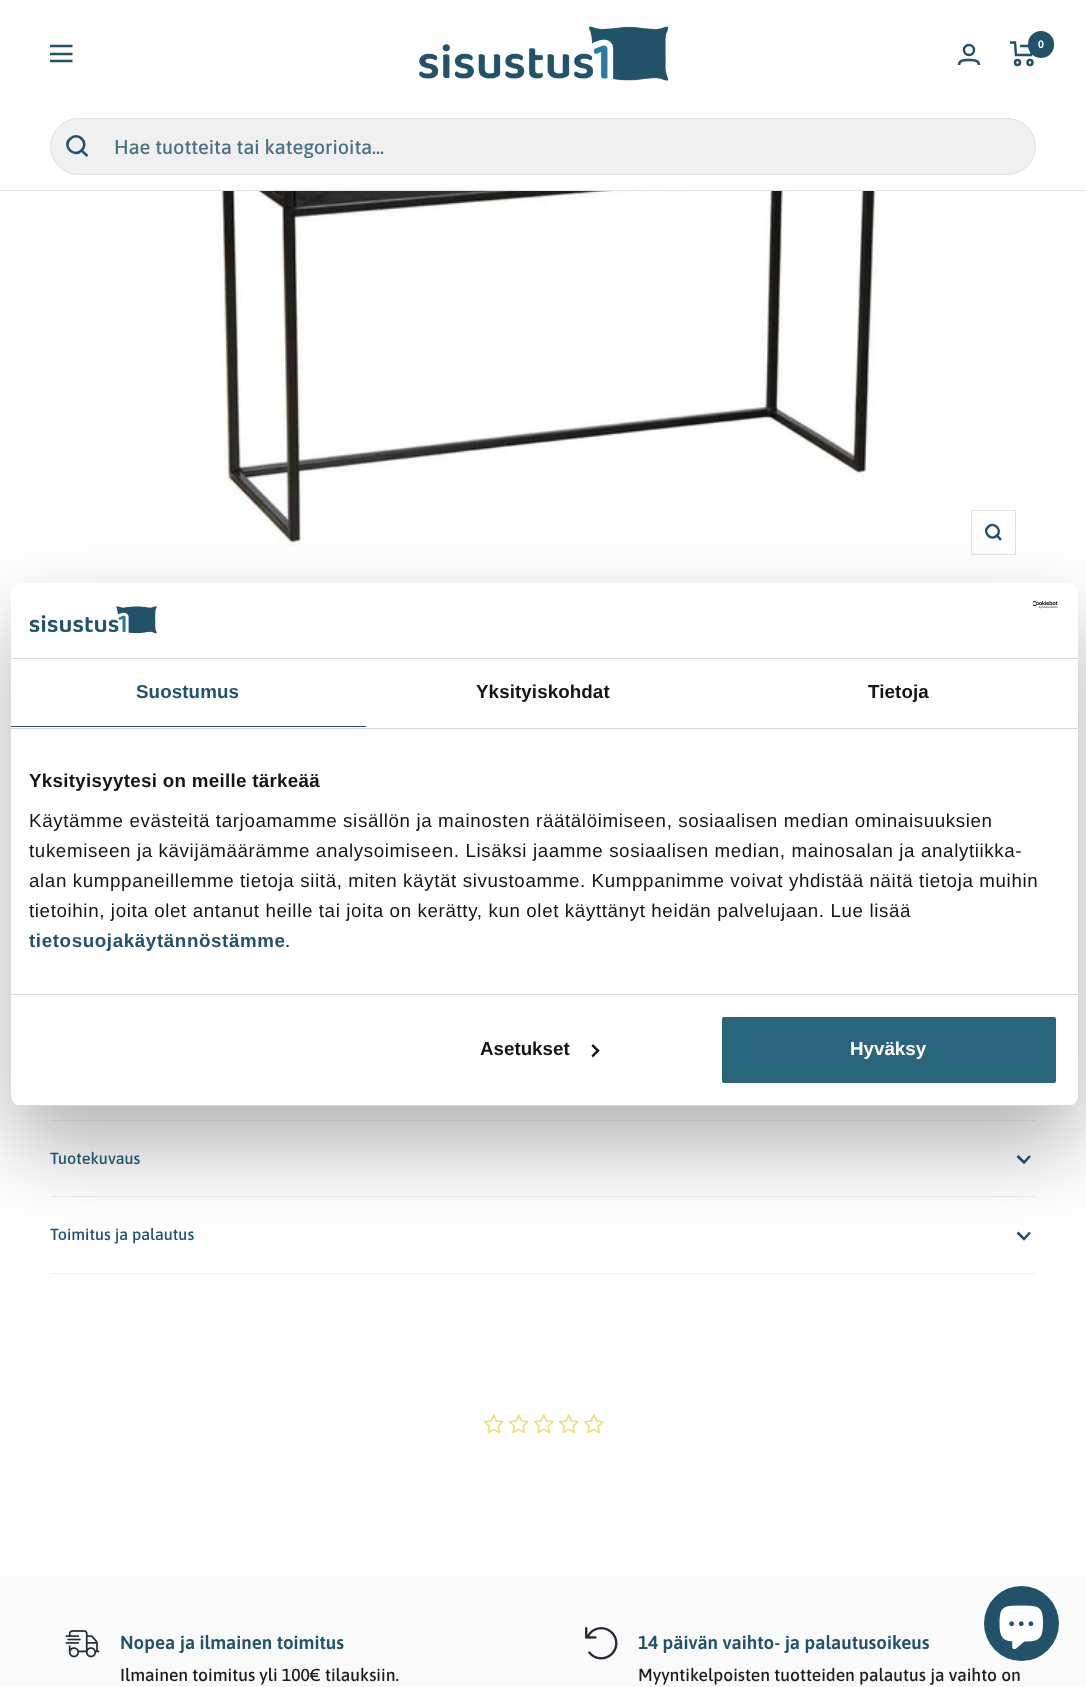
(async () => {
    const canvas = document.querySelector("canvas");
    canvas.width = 1086;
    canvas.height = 1687;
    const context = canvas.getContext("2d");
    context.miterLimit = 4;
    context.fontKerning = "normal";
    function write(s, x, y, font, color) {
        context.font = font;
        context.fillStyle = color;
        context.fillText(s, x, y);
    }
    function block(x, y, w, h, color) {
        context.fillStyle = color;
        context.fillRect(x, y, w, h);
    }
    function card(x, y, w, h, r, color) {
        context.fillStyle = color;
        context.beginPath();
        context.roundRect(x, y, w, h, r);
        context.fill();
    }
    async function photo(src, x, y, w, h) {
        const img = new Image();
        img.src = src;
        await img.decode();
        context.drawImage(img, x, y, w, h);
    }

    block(0, 0, 1086, 1687, "rgb(255, 255, 255)");
    block(0, 190, 1086, 1, "rgb(222, 229, 233)");
    context.beginPath();
    context.moveTo(50, 46);
    context.lineTo(72.5, 46);
    context.moveTo(50, 61);
    context.lineTo(72.5, 61);
    context.closePath();
    context.moveTo(50, 54);
    context.lineTo(72.5, 54);
    context.closePath();
    context.strokeStyle = "rgb(34, 82, 105)";
    context.lineWidth = 2.5;
    context.stroke();
    await photo("media/1.png", 419, 26, 250, 55);
    context.beginPath();
    context.arc(969, 50, 5, 0, Math.PI * 2);
    context.stroke();
    context.beginPath();
    context.moveTo(959, 65);
    context.bezierCurveTo(959, 59.5, 965, 60, 969, 60);
    context.bezierCurveTo(972.5, 60, 979, 59.5, 979, 65);
    context.stroke();
    context.beginPath();
    context.moveTo(1010, 42.5);
    context.lineTo(1015, 42.5);
    context.lineTo(1016, 55);
    context.lineTo(1031, 55);
    context.lineTo(1034, 46);
    context.lineTo(1020, 46);
    context.stroke();
    context.beginPath();
    context.arc(1017.5, 62.5, 2.5, 0, Math.PI * 2);
    context.stroke();
    context.beginPath();
    context.arc(1030, 62.5, 2.5, 0, Math.PI * 2);
    context.stroke();
    card(1028, 31, 26, 27, 13, "rgb(34, 82, 105)");
    write("0", 1038, 48, "600 11px Asap", "rgb(255, 255, 255)");
    context.fillStyle = "rgb(240, 240, 240)";
    context.beginPath();
    context.roundRect(50.5, 118.5, 985, 56, 28);
    context.fill();
    context.strokeStyle = "rgb(224, 224, 224)";
    context.lineWidth = 1;
    context.stroke();
    context.beginPath();
    context.moveTo(81.5, 150.5);
    context.bezierCurveTo(89.5, 142.5, 78, 131, 70, 139);
    context.bezierCurveTo(62, 146.5, 74, 158, 81.5, 150.5);
    context.closePath();
    context.moveTo(81.5, 150.5);
    context.lineTo(87.5, 156);
    context.strokeStyle = "rgb(34, 82, 105)";
    context.lineWidth = 2.5;
    context.stroke();
    context.save();
    context.beginPath();
    context.rect(114, 135, 899, 23);
    context.clip();
    write("Hae tuotteita tai kategorioita...", 114, 154, "500 20px Asap", "rgb(75, 114, 132)");
    context.restore();
    await photo("media/4.png", 214, 191, 671, 356);
    context.strokeStyle = "rgb(222, 229, 233)";
    context.lineWidth = 1;
    context.strokeRect(971.5, 510.5, 44, 44);
    context.beginPath();
    context.moveTo(997, 535.5);
    context.bezierCurveTo(1002.5, 530, 994, 521, 988, 527);
    context.bezierCurveTo(982.5, 532.5, 991, 541.5, 997, 535.5);
    context.closePath();
    context.moveTo(997, 535.5);
    context.lineTo(1001, 540);
    context.strokeStyle = "rgb(34, 82, 105)";
    context.lineWidth = 2.5;
    context.stroke();
    block(50, 1120, 986, 1, "rgb(240, 240, 240)");
    block(50, 1196, 986, 1, "rgb(240, 240, 240)");
    context.beginPath();
    context.moveTo(1017.5, 1156);
    context.lineTo(1024, 1162.5);
    context.lineTo(1030, 1156);
    context.stroke();
    block(50, 1273, 986, 1, "rgb(240, 240, 240)");
    context.beginPath();
    context.moveTo(1017.5, 1232.5);
    context.lineTo(1024, 1239);
    context.lineTo(1030, 1232.5);
    context.stroke();
    context.fillStyle = "rgba(0, 0, 0, 0.3)";
    context.filter = "blur(42.5px)";
    context.beginPath();
    context.roundRect(11, 623, 1067, 523, 10);
    context.fill();
    context.filter = "none";
    card(11, 583, 1067, 523, 10, "rgb(255, 255, 255)");
    block(11, 658, 1067, 1, "rgb(214, 214, 214)");
    await photo("media/2.png", 1033, 601, 25, 8);
    await photo("media/3.png", 29, 606, 128, 28);
    block(11, 728, 1067, 1, "rgb(214, 214, 214)");
    block(11, 726, 355, 1, "rgb(34, 82, 105)");
    context.letterSpacing = "0.1px";
    write("Suostumus", 136, 698, "bold 18.75px Liberation Sans", "rgb(34, 82, 105)");
    write("Yksityiskohdat", 476, 698, "bold 18.75px Liberation Sans", "rgb(20, 20, 20)");
    write("Tietoja", 868, 698, "bold 18.75px Liberation Sans", "rgb(20, 20, 20)");
    block(11, 994, 1067, 1, "rgb(214, 214, 214)");
    context.letterSpacing = "0.3px";
    write("Yksityisyytesi on meille tärkeää", 29, 787, "bold 18.75px Liberation Sans", "rgb(20, 20, 20)");
    context.letterSpacing = "0.62px";
    write("Käytämme evästeitä tarjoamamme sisällön ja mainosten räätälöimiseen, sosiaalisen median ominaisuuksien", 29, 827, "18.75px Liberation Sans", "rgb(20, 20, 20)");
    write("tukemiseen ja kävijämäärämme analysoimiseen. Lisäksi jaamme sosiaalisen median, mainosalan ja analytiikka-", 29, 857, "18.75px Liberation Sans", "rgb(20, 20, 20)");
    write("alan kumppaneillemme tietoja siitä, miten käytät sivustoamme. Kumppanimme voivat yhdistää näitä tietoja muihin", 29, 887, "18.75px Liberation Sans", "rgb(20, 20, 20)");
    write("tietoihin, joita olet antanut heille tai joita on kerätty, kun olet käyttänyt heidän palvelujaan. Lue lisää", 29, 917, "18.75px Liberation Sans", "rgb(20, 20, 20)");
    write("tietosuojakäytännöstämme", 29, 947, "bold 18.75px Liberation Sans", "rgb(34, 82, 105)");
    write(".", 285, 947, "18.75px Liberation Sans", "rgb(20, 20, 20)");
    context.save();
    context.beginPath();
    context.roundRect(11, 583, 1067, 523, 10);
    context.clip();
    block(11, 1105, 1067, 1, "rgb(214, 214, 214)");
    context.restore();
    context.letterSpacing = "0px";
    write("Asetukset", 480, 1055, "bold 18.75px Liberation Sans", "rgb(20, 20, 20)");
    context.beginPath();
    context.moveTo(593, 1044);
    context.lineTo(599.5, 1050.5);
    context.lineTo(598, 1052.5);
    context.lineTo(591.5, 1046);
    context.closePath();
    context.fill();
    context.beginPath();
    context.moveTo(598, 1049);
    context.lineTo(599.5, 1050.5);
    context.lineTo(593, 1057.5);
    context.lineTo(591.5, 1055.5);
    context.closePath();
    context.fill();
    context.fillStyle = "rgb(43, 101, 124)";
    context.beginPath();
    context.roundRect(720.5, 1015.5, 337, 69, 3.5);
    context.fill();
    context.strokeStyle = "rgb(255, 255, 255)";
    context.lineWidth = 3;
    context.stroke();
    write("Hyväksy", 850, 1055, "bold 18.75px Liberation Sans", "rgb(255, 255, 255)");
    write("Tuotekuvaus", 50, 1164, "500 16.25px Asap", "rgb(34, 82, 105)");
    write("Toimitus ja palautus", 50, 1240, "500 16.25px Asap", "rgb(34, 82, 105)");
    await photo("media/5.png", 483, 1414, 21, 20);
    await photo("media/5.png", 508, 1414, 21, 20);
    await photo("media/5.png", 533, 1414, 21, 20);
    await photo("media/5.png", 558, 1414, 21, 20);
    await photo("media/5.png", 583, 1414, 21, 20);
    block(0, 1576, 1086, 111, "rgb(250, 250, 250)");
    await photo("media/6.png", 65, 1630, 35, 28);
    write("Nopea ja ilmainen toimitus", 120, 1649, "600 18.75px Asap", "rgb(34, 82, 105)");
    write("Ilmainen toimitus yli 100€ tilauksiin.", 120, 1681, "500 17.5px Asap", "rgb(28, 28, 28)");
    await photo("media/7.png", 585, 1627, 33, 33);
    write("14 päivän vaihto- ja palautusoikeus", 638, 1649, "600 18.75px Asap", "rgb(34, 82, 105)");
    write("Myyntikelpoisten tuotteiden palautus ja vaihto on", 638, 1681, "500 17.5px Asap", "rgb(28, 28, 28)");
    context.fillStyle = "rgb(34, 82, 105)";
    context.beginPath();
    context.arc(1021.5, 1623.5, 37.5, 0, Math.PI * 2);
    context.fill();
    await photo("media/8.png", 999, 1605, 44, 45);
})();
